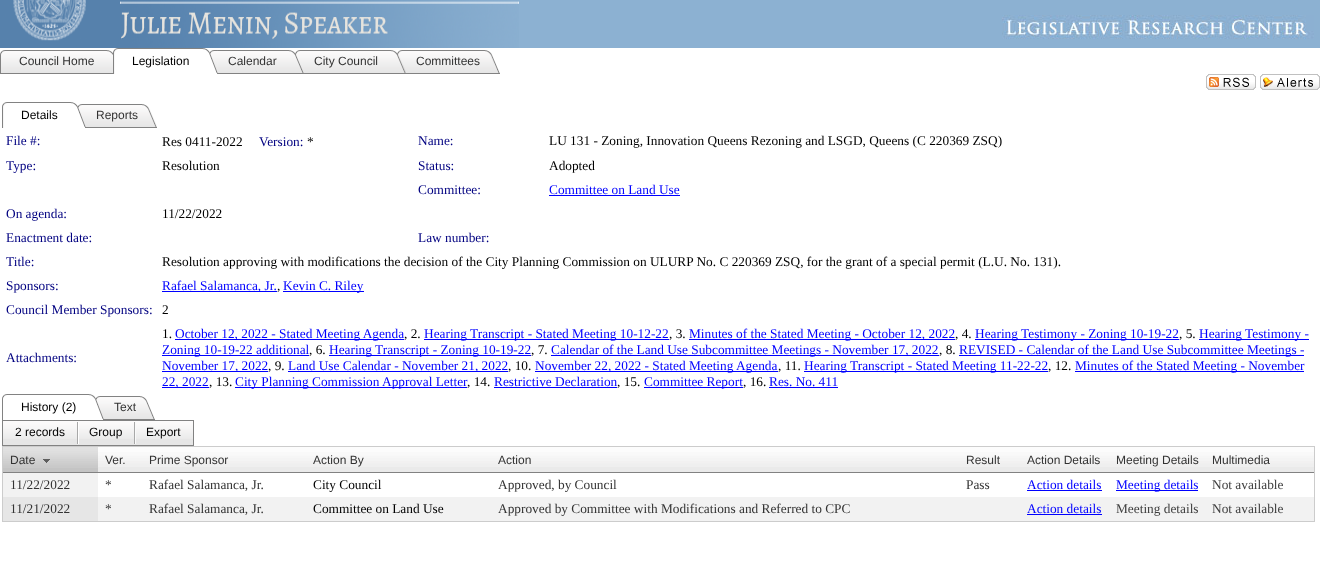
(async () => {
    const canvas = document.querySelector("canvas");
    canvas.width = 1320;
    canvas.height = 561;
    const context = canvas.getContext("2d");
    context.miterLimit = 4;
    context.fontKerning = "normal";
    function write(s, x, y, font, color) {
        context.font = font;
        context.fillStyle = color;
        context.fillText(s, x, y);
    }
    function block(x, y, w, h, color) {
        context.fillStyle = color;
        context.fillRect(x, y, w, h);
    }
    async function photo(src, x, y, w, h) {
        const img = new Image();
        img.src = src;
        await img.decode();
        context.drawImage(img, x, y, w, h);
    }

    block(0, 0, 1320, 561, "rgb(255, 255, 255)");
    block(519, 0, 801, 48, "rgb(140, 177, 210)");
    await photo("media/1.png", 0, 0, 519, 48);
    await photo("media/2.png", 1002, 15, 312, 24);
    await photo("media/3.png", 0, 50, 9, 24);
    await photo("media/4.png", 9, 50, 104, 24);
    write("Council Home", 19, 65, "12px Liberation Sans", "rgb(51, 51, 51)");
    await photo("media/5.png", 113, 48, 10, 26);
    await photo("media/6.png", 122, 48, 87, 5);
    write("Legislation", 132, 65, "12px Liberation Sans", "rgb(0, 0, 0)");
    await photo("media/7.png", 209, 50, 9, 24);
    await photo("media/8.png", 218, 50, 77, 24);
    write("Calendar", 228, 65, "12px Liberation Sans", "rgb(51, 51, 51)");
    await photo("media/9.png", 295, 50, 9, 24);
    await photo("media/10.png", 304, 50, 93, 24);
    write("City Council", 314, 65, "12px Liberation Sans", "rgb(51, 51, 51)");
    await photo("media/11.png", 397, 50, 9, 24);
    await photo("media/12.png", 406, 50, 94, 24);
    write("Committees", 416, 65, "12px Liberation Sans", "rgb(51, 51, 51)");
    await photo("media/13.png", 1206, 74, 50, 16);
    await photo("media/14.png", 1260, 74, 60, 16);
    await photo("media/5.png", 2, 102, 10, 26);
    await photo("media/15.png", 11, 102, 66, 5);
    write("Details", 21, 119, "12px Liberation Sans", "rgb(0, 0, 0)");
    await photo("media/16.png", 77, 104, 9, 24);
    await photo("media/17.png", 86, 104, 71, 24);
    write("Reports", 96, 119, "12px Liberation Sans", "rgb(51, 51, 51)");
    write("File #:", 6, 145, "13.33px Liberation Serif", "rgb(0, 0, 128)");
    write("Res 0411-2022", 162, 146, "13.33px Liberation Serif", "rgb(0, 0, 0)");
    write("Version:", 259, 146, "13.33px Liberation Serif", "rgb(0, 0, 128)");
    write("*", 307, 146, "13.33px Liberation Serif", "rgb(0, 0, 0)");
    write("Name:", 418, 145, "13.33px Liberation Serif", "rgb(0, 0, 128)");
    write("LU 131 - Zoning, Innovation Queens Rezoning and LSGD, Queens (C 220369 ZSQ)", 549, 145, "13.33px Liberation Serif", "rgb(0, 0, 0)");
    write("Type:", 6, 170, "13.33px Liberation Serif", "rgb(0, 0, 128)");
    write("Resolution", 162, 170, "13.33px Liberation Serif", "rgb(0, 0, 0)");
    write("Status:", 418, 170, "13.33px Liberation Serif", "rgb(0, 0, 128)");
    write("Adopted", 549, 170, "13.33px Liberation Serif", "rgb(0, 0, 0)");
    write("Committee:", 418, 194, "13.33px Liberation Serif", "rgb(0, 0, 128)");
    write("Committee on Land Use", 549, 194, "13.33px Liberation Serif", "rgb(0, 0, 255)");
    block(549, 195, 131, 1, "rgb(0, 0, 255)");
    write("On agenda:", 6, 218, "13.33px Liberation Serif", "rgb(0, 0, 128)");
    write("11/22/2022", 162, 218, "13.33px Liberation Serif", "rgb(0, 0, 0)");
    write("Enactment date:", 6, 242, "13.33px Liberation Serif", "rgb(0, 0, 128)");
    write("Law number:", 418, 242, "13.33px Liberation Serif", "rgb(0, 0, 128)");
    write("Title:", 6, 266, "13.33px Liberation Serif", "rgb(0, 0, 128)");
    write("Resolution approving with modifications the decision of the City Planning Commission on ULURP No. C 220369 ZSQ, for the grant of a special permit (L.U. No. 131).", 162, 266, "13.33px Liberation Serif", "rgb(0, 0, 0)");
    write("Sponsors:", 6, 290, "13.33px Liberation Serif", "rgb(0, 0, 128)");
    block(162, 291, 115, 1, "rgb(0, 0, 255)");
    write("Rafael Salamanca, Jr.", 162, 290, "13.33px Liberation Serif", "rgb(0, 0, 255)");
    write(",", 277, 290, "13.33px Liberation Serif", "rgb(0, 0, 0)");
    block(283, 291, 81, 1, "rgb(0, 0, 255)");
    write("Kevin C. Riley", 283, 290, "13.33px Liberation Serif", "rgb(0, 0, 255)");
    write("Council Member Sponsors:", 6, 314, "13.33px Liberation Serif", "rgb(0, 0, 128)");
    write("2", 162, 314, "13.33px Liberation Serif", "rgb(0, 0, 0)");
    write("Attachments:", 6, 362, "13.33px Liberation Serif", "rgb(0, 0, 128)");
    write("1.", 162, 338, "13.33px Liberation Serif", "rgb(0, 0, 0)");
    block(175, 339, 229, 1, "rgb(0, 0, 255)");
    write("October 12, 2022 - Stated Meeting Agenda", 175, 338, "13.33px Liberation Serif", "rgb(0, 0, 255)");
    write(", 2.", 404, 338, "13.33px Liberation Serif", "rgb(0, 0, 0)");
    block(424, 339, 245, 1, "rgb(0, 0, 255)");
    write("Hearing Transcript - Stated Meeting 10-12-22", 424, 338, "13.33px Liberation Serif", "rgb(0, 0, 255)");
    write(", 3.", 669, 338, "13.33px Liberation Serif", "rgb(0, 0, 0)");
    block(689, 339, 266, 1, "rgb(0, 0, 255)");
    write("Minutes of the Stated Meeting - October 12, 2022", 689, 338, "13.33px Liberation Serif", "rgb(0, 0, 255)");
    write(", 4.", 955, 338, "13.33px Liberation Serif", "rgb(0, 0, 0)");
    block(975, 339, 204, 1, "rgb(0, 0, 255)");
    write("Hearing Testimony - Zoning 10-19-22", 975, 338, "13.33px Liberation Serif", "rgb(0, 0, 255)");
    write(", 5.", 1179, 338, "13.33px Liberation Serif", "rgb(0, 0, 0)");
    block(1199, 339, 110, 1, "rgb(0, 0, 255)");
    write("Hearing Testimony -", 1199, 338, "13.33px Liberation Serif", "rgb(0, 0, 255)");
    block(162, 355, 147, 1, "rgb(0, 0, 255)");
    write("Zoning 10-19-22 additional", 162, 354, "13.33px Liberation Serif", "rgb(0, 0, 255)");
    write(", 6.", 309, 354, "13.33px Liberation Serif", "rgb(0, 0, 0)");
    block(329, 355, 202, 1, "rgb(0, 0, 255)");
    write("Hearing Transcript - Zoning 10-19-22", 329, 354, "13.33px Liberation Serif", "rgb(0, 0, 255)");
    write(", 7.", 531, 354, "13.33px Liberation Serif", "rgb(0, 0, 0)");
    block(551, 355, 388, 1, "rgb(0, 0, 255)");
    write("Calendar of the Land Use Subcommittee Meetings - November 17, 2022", 551, 354, "13.33px Liberation Serif", "rgb(0, 0, 255)");
    write(", 8.", 939, 354, "13.33px Liberation Serif", "rgb(0, 0, 0)");
    block(959, 355, 345, 1, "rgb(0, 0, 255)");
    write("REVISED - Calendar of the Land Use Subcommittee Meetings -", 959, 354, "13.33px Liberation Serif", "rgb(0, 0, 255)");
    block(162, 371, 106, 1, "rgb(0, 0, 255)");
    write("November 17, 2022", 162, 370, "13.33px Liberation Serif", "rgb(0, 0, 255)");
    write(", 9.", 268, 370, "13.33px Liberation Serif", "rgb(0, 0, 0)");
    block(288, 371, 220, 1, "rgb(0, 0, 255)");
    write("Land Use Calendar - November 21, 2022", 288, 370, "13.33px Liberation Serif", "rgb(0, 0, 255)");
    write(", 10.", 508, 370, "13.33px Liberation Serif", "rgb(0, 0, 0)");
    block(535, 371, 243, 1, "rgb(0, 0, 255)");
    write("November 22, 2022 - Stated Meeting Agenda", 535, 370, "13.33px Liberation Serif", "rgb(0, 0, 255)");
    write(", 11.", 778, 370, "13.33px Liberation Serif", "rgb(0, 0, 0)");
    block(804, 371, 244, 1, "rgb(0, 0, 255)");
    write("Hearing Transcript - Stated Meeting 11-22-22", 804, 370, "13.33px Liberation Serif", "rgb(0, 0, 255)");
    write(", 12.", 1048, 370, "13.33px Liberation Serif", "rgb(0, 0, 0)");
    block(1075, 371, 229, 1, "rgb(0, 0, 255)");
    write("Minutes of the Stated Meeting - November", 1075, 370, "13.33px Liberation Serif", "rgb(0, 0, 255)");
    block(162, 387, 47, 1, "rgb(0, 0, 255)");
    write("22, 2022", 162, 386, "13.33px Liberation Serif", "rgb(0, 0, 255)");
    write(", 13.", 209, 386, "13.33px Liberation Serif", "rgb(0, 0, 0)");
    block(235, 387, 232, 1, "rgb(0, 0, 255)");
    write("City Planning Commission Approval Letter", 235, 386, "13.33px Liberation Serif", "rgb(0, 0, 255)");
    write(", 14.", 467, 386, "13.33px Liberation Serif", "rgb(0, 0, 0)");
    write("Restrictive Declaration", 494, 386, "13.33px Liberation Serif", "rgb(0, 0, 255)");
    write(", 15.", 617, 386, "13.33px Liberation Serif", "rgb(0, 0, 0)");
    block(494, 387, 123, 1, "rgb(0, 0, 255)");
    block(644, 387, 99, 1, "rgb(0, 0, 255)");
    write("Committee Report", 644, 386, "13.33px Liberation Serif", "rgb(0, 0, 255)");
    write(", 16.", 743, 386, "13.33px Liberation Serif", "rgb(0, 0, 0)");
    write("Res. No. 411", 769, 386, "13.33px Liberation Serif", "rgb(0, 0, 255)");
    block(769, 387, 69, 1, "rgb(0, 0, 255)");
    await photo("media/18.png", 2, 394, 9, 26);
    await photo("media/19.png", 11, 394, 84, 5);
    write("History (2)", 21, 411, "12px Liberation Sans", "rgb(0, 0, 0)");
    await photo("media/16.png", 95, 396, 9, 24);
    await photo("media/20.png", 104, 396, 51, 24);
    write("Text", 114, 411, "12px Liberation Sans", "rgb(51, 51, 51)");
    block(3, 439, 190, 6, "rgb(230, 230, 230)");
    await photo("media/21.png", 3, 421, 190, 18);
    context.strokeStyle = "rgb(130, 130, 130)";
    context.strokeRect(2.5, 420.5, 191, 25);
    write("2 records", 15, 436, "12px Liberation Sans", "rgb(0, 0, 0)");
    await photo("media/22.png", 77, 422, 2, 22);
    write("Group", 89, 436, "12px Liberation Sans", "rgb(0, 0, 0)");
    await photo("media/23.png", 134, 422, 2, 22);
    write("Export", 146, 436, "12px Liberation Sans", "rgb(0, 0, 0)");
    context.strokeStyle = "rgb(204, 204, 204)";
    context.strokeRect(2.5, 446.5, 1312, 75);
    block(3, 468, 95, 4, "rgb(196, 196, 196)");
    await photo("media/24.png", 3, 447, 95, 21);
    block(3, 472, 1311, 1, "rgb(130, 130, 130)");
    write("Date", 10, 464, "12px Liberation Sans", "rgb(51, 51, 51)");
    await photo("media/25.png", 43, 459, 7, 4);
    block(98, 467, 1216, 5, "rgb(234, 234, 234)");
    await photo("media/26.png", 98, 447, 44, 20);
    write("Ver.", 105, 464, "12px Liberation Sans", "rgb(51, 51, 51)");
    await photo("media/27.png", 142, 447, 164, 20);
    write("Prime Sponsor", 149, 464, "12px Liberation Sans", "rgb(51, 51, 51)");
    await photo("media/28.png", 306, 447, 185, 20);
    write("Action By", 313, 464, "12px Liberation Sans", "rgb(51, 51, 51)");
    await photo("media/29.png", 491, 447, 468, 20);
    write("Action", 498, 464, "12px Liberation Sans", "rgb(51, 51, 51)");
    await photo("media/30.png", 959, 447, 61, 20);
    write("Result", 966, 464, "12px Liberation Sans", "rgb(51, 51, 51)");
    await photo("media/31.png", 1020, 447, 89, 20);
    write("Action Details", 1027, 464, "12px Liberation Sans", "rgb(51, 51, 51)");
    await photo("media/32.png", 1109, 447, 96, 20);
    write("Meeting Details", 1116, 464, "12px Liberation Sans", "rgb(51, 51, 51)");
    await photo("media/33.png", 1205, 447, 109, 20);
    write("Multimedia", 1212, 464, "12px Liberation Sans", "rgb(51, 51, 51)");
    block(3, 473, 95, 24, "rgb(242, 242, 242)");
    write("11/22/2022", 10, 489, "13.33px Liberation Serif", "rgb(51, 51, 51)");
    write("*", 105, 489, "13.33px Liberation Serif", "rgb(51, 51, 51)");
    write("Rafael Salamanca, Jr.", 149, 489, "13.33px Liberation Serif", "rgb(51, 51, 51)");
    write("City Council", 313, 489, "13.33px Liberation Serif", "rgb(0, 0, 0)");
    write("Approved, by Council", 498, 489, "13.33px Liberation Serif", "rgb(51, 51, 51)");
    write("Pass", 966, 489, "13.33px Liberation Serif", "rgb(51, 51, 51)");
    write("Action details", 1027, 489, "13.33px Liberation Serif", "rgb(0, 0, 255)");
    block(1027, 490, 75, 1, "rgb(0, 0, 255)");
    block(1116, 490, 82, 1, "rgb(0, 0, 255)");
    write("Meeting details", 1116, 489, "13.33px Liberation Serif", "rgb(0, 0, 255)");
    write("Not available", 1212, 489, "13.33px Liberation Serif", "rgb(61, 61, 61)");
    block(98, 497, 1216, 24, "rgb(242, 242, 242)");
    block(3, 497, 95, 24, "rgb(230, 230, 230)");
    write("11/21/2022", 10, 513, "13.33px Liberation Serif", "rgb(51, 51, 51)");
    write("*", 105, 513, "13.33px Liberation Serif", "rgb(51, 51, 51)");
    write("Rafael Salamanca, Jr.", 149, 513, "13.33px Liberation Serif", "rgb(51, 51, 51)");
    write("Committee on Land Use", 313, 513, "13.33px Liberation Serif", "rgb(0, 0, 0)");
    write("Approved by Committee with Modifications and Referred to CPC", 498, 513, "13.33px Liberation Serif", "rgb(51, 51, 51)");
    write("Action details", 1027, 513, "13.33px Liberation Serif", "rgb(0, 0, 255)");
    block(1027, 514, 75, 1, "rgb(0, 0, 255)");
    write("Meeting details", 1116, 513, "13.33px Liberation Serif", "rgb(61, 61, 61)");
    write("Not available", 1212, 513, "13.33px Liberation Serif", "rgb(61, 61, 61)");
})();
